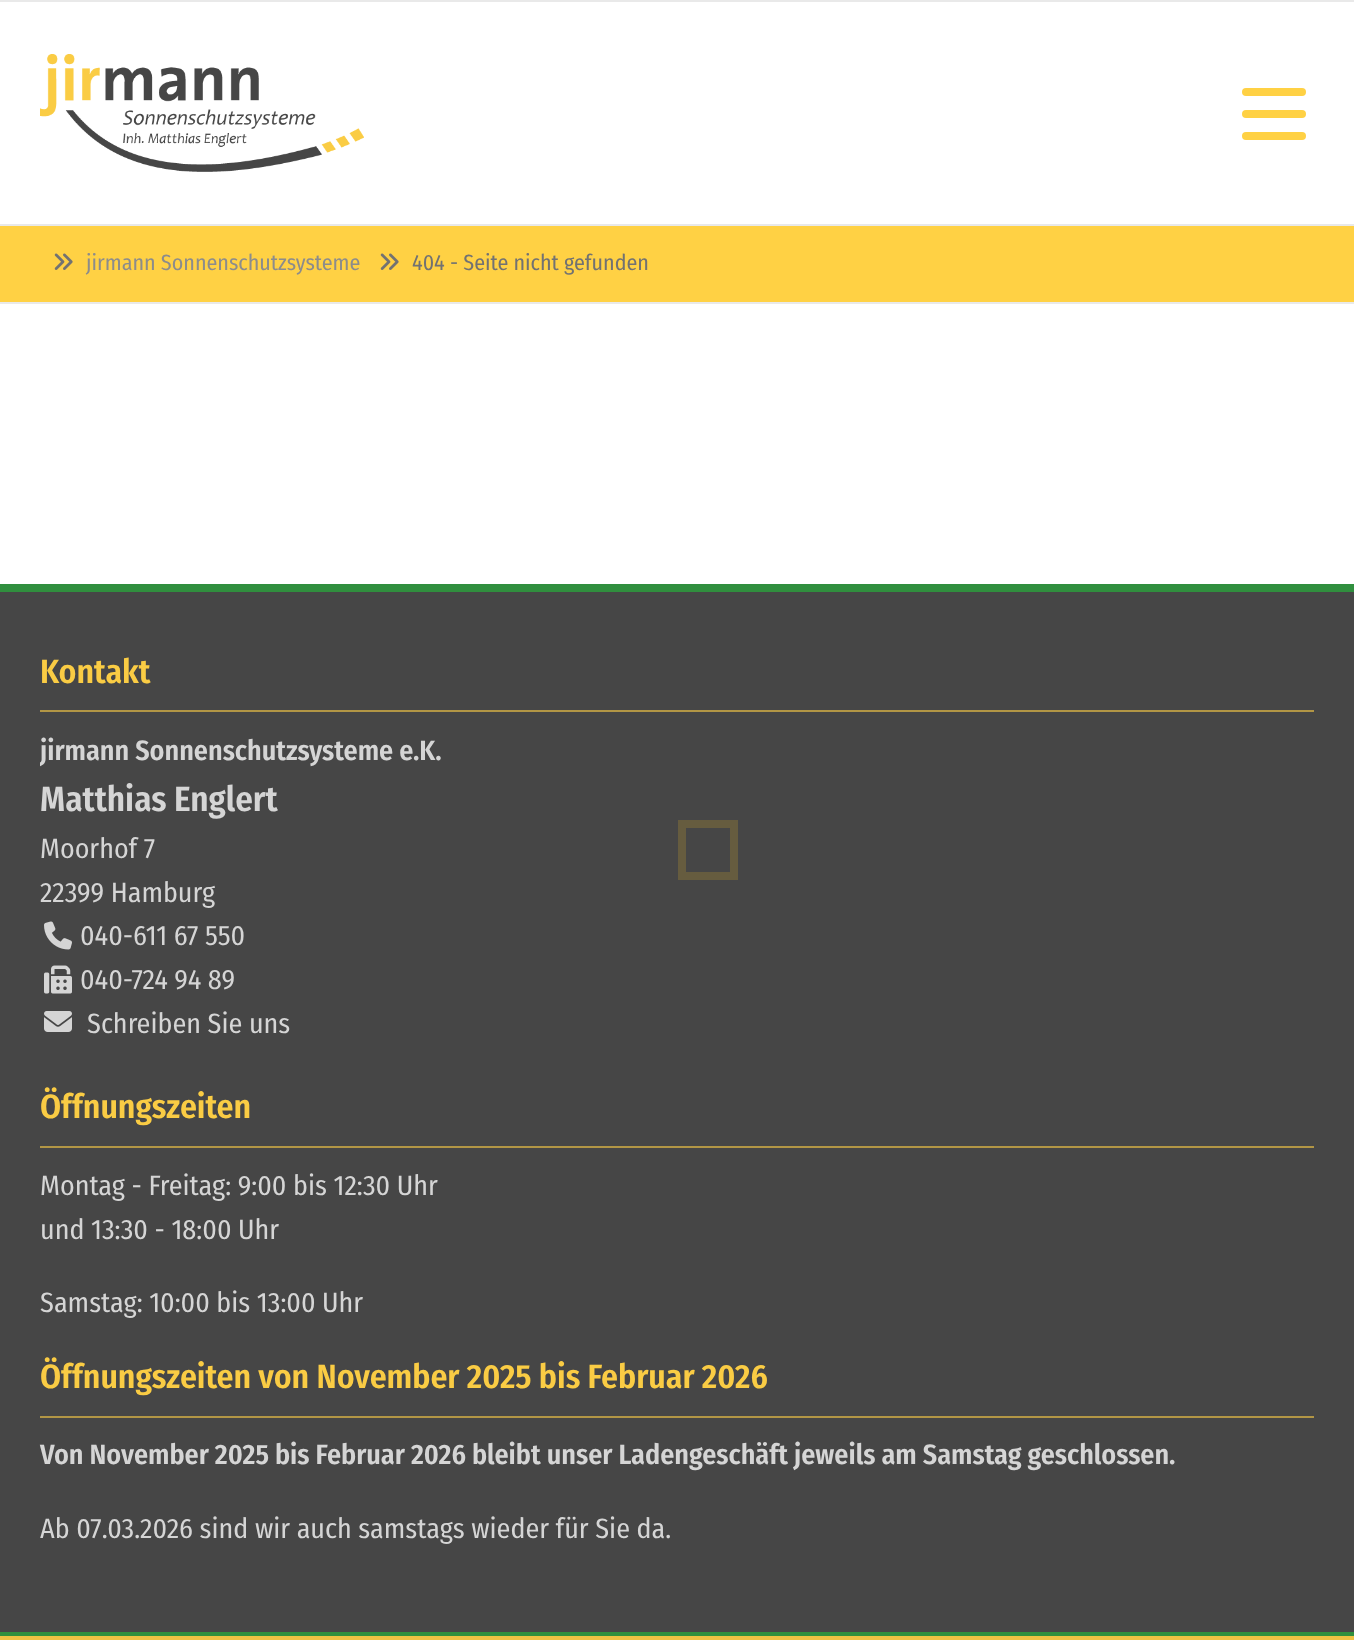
(async () => {
    const canvas = document.querySelector("canvas");
    canvas.width = 1354;
    canvas.height = 1640;
    const context = canvas.getContext("2d");
    context.miterLimit = 4;
    context.fontKerning = "normal";
    function write(s, x, y, font, color) {
        context.font = font;
        context.fillStyle = color;
        context.fillText(s, x, y);
    }
    function block(x, y, w, h, color) {
        context.fillStyle = color;
        context.fillRect(x, y, w, h);
    }
    function card(x, y, w, h, r, color) {
        context.fillStyle = color;
        context.beginPath();
        context.roundRect(x, y, w, h, r);
        context.fill();
    }
    async function photo(src, x, y, w, h) {
        const img = new Image();
        img.src = src;
        await img.decode();
        context.drawImage(img, x, y, w, h);
    }

    block(0, 0, 1354, 1640, "rgb(255, 255, 255)");
    block(0, 0, 1354, 2, "rgb(233, 233, 233)");
    block(0, 224, 1354, 2, "rgb(233, 233, 233)");
    await photo("media/1.png", 40, 54, 324, 118);
    card(1242, 88, 64, 8, 4, "rgb(255, 209, 68)");
    card(1242, 110, 64, 8, 4, "rgb(255, 209, 68)");
    card(1242, 132, 64, 8, 4, "rgb(255, 209, 68)");
    block(0, 226, 1354, 76, "rgb(255, 209, 68)");
    block(0, 302, 1354, 2, "rgb(233, 233, 233)");
    await photo("media/2.png", 54, 253, 19, 17);
    write("jirmann Sonnenschutzsysteme", 86, 270, "22px Fira Sans Condensed", "rgb(140, 140, 140)");
    await photo("media/2.png", 380, 253, 19, 17);
    write("404 - Seite nicht gefunden", 412, 270, "22px Fira Sans Condensed", "rgb(114, 114, 114)");
    block(0, 592, 1354, 1040, "rgb(70, 70, 70)");
    block(0, 584, 1354, 8, "rgb(48, 143, 62)");
    block(40, 710, 1274, 2, "rgb(178, 150, 69)");
    write("Kontakt", 40, 683, "600 33.6px Fira Sans Condensed", "rgb(250, 204, 68)");
    context.save();
    context.beginPath();
    context.rect(40, 652, 1274, 394);
    context.clip();
    write("jirmann Sonnenschutzsysteme e.K.", 40, 760, "600 28px Fira Sans Condensed", "rgb(213, 213, 213)");
    context.restore();
    write("Matthias", 40, 811, "600 35px Fira Sans Condensed", "rgb(213, 213, 213)");
    write("Englert", 174, 811, "600 35px Fira Sans Condensed", "rgb(213, 213, 213)");
    write("Moorhof 7", 40, 858, "28px Fira Sans Condensed", "rgb(213, 213, 213)");
    write("22399 Hamburg", 40, 902, "28px Fira Sans Condensed", "rgb(213, 213, 213)");
    await photo("media/3.png", 44, 921, 28, 29);
    write("040-611 67 550", 80, 945, "28px Fira Sans Condensed", "rgb(213, 213, 213)");
    await photo("media/4.png", 44, 965, 28, 29);
    write("040-724 94 89", 80, 989, "28px Fira Sans Condensed", "rgb(213, 213, 213)");
    await photo("media/5.png", 44, 1011, 28, 21);
    write("Schreiben Sie uns", 87, 1033, "28px Fira Sans Condensed", "rgb(213, 213, 213)");
    block(40, 1146, 1274, 2, "rgb(178, 150, 69)");
    write("Öffnungszeiten", 40, 1118, "600 33.6px Fira Sans Condensed", "rgb(250, 204, 68)");
    write("Montag - Freitag: 9:00 bis 12:30 Uhr", 40, 1195, "28px Fira Sans Condensed", "rgb(213, 213, 213)");
    write("und 13:30 - 18:00 Uhr", 40, 1239, "28px Fira Sans Condensed", "rgb(213, 213, 213)");
    write("Samstag: 10:00 bis 13:00 Uhr", 40, 1312, "28px Fira Sans Condensed", "rgb(213, 213, 213)");
    block(40, 1416, 1274, 2, "rgb(178, 150, 69)");
    write("Öffnungszeiten von November 2025 bis Februar 2026", 40, 1388, "600 33.6px Fira Sans Condensed", "rgb(250, 204, 68)");
    write("Von November 2025 bis Februar 2026 bleibt unser Ladengeschäft jeweils am Samstag geschlossen.", 40, 1464, "600 28px Fira Sans Condensed", "rgb(213, 213, 213)");
    write("Ab 07.03.2026 sind wir auch samstags wieder für Sie da.", 40, 1538, "28px Fira Sans Condensed", "rgb(213, 213, 213)");
    block(0, 1636, 1354, 4, "rgb(238, 194, 67)");
    block(0, 1632, 1354, 4, "rgb(48, 143, 62)");
    context.strokeStyle = "rgb(102, 92, 63)";
    context.lineWidth = 8;
    context.strokeRect(682, 824, 52, 52);
})();
